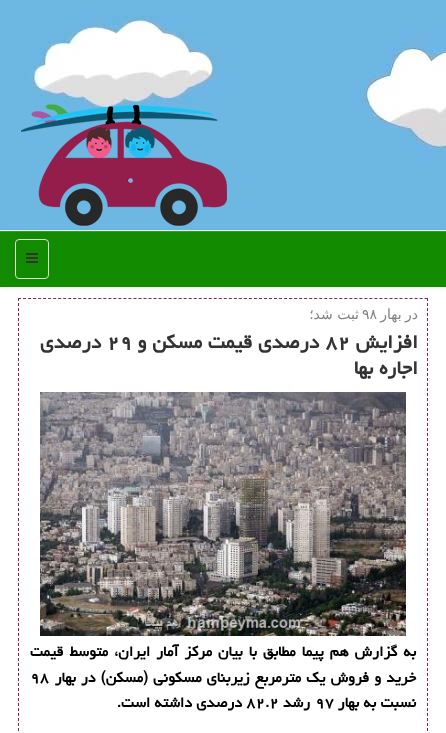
(async () => {
    const canvas = document.querySelector("canvas");
    canvas.width = 446;
    canvas.height = 733;
    const context = canvas.getContext("2d");
    context.miterLimit = 4;
    context.fontKerning = "normal";
    function write(s, x, y, font, color) {
        context.font = font;
        context.fillStyle = color;
        context.fillText(s, x, y);
    }
    function block(x, y, w, h, color) {
        context.fillStyle = color;
        context.fillRect(x, y, w, h);
    }
    async function photo(src, x, y, w, h) {
        const img = new Image();
        img.src = src;
        await img.decode();
        context.drawImage(img, x, y, w, h);
    }

    block(0, 0, 446, 733, "rgb(255, 255, 255)");
    await photo("media/1.png", 0, 0, 446, 230);
    block(0, 230, 446, 1, "rgb(238, 238, 238)");
    await photo("media/2.png", 20, 104, 208, 123);
    context.fillStyle = "rgba(0, 0, 0, 0.07)";
    context.filter = "blur(2.5px)";
    context.beginPath();
    context.rect(0, 232, 446, 56);
    context.fill();
    context.filter = "none";
    block(0, 232, 446, 55, "rgb(18, 139, 0)");
    block(0, 231, 446, 1, "rgb(54, 156, 38)");
    context.beginPath();
    context.roundRect(15.5, 239.5, 33, 39, 3.5);
    context.strokeStyle = "rgb(221, 221, 221)";
    context.stroke();
    await photo("media/3.png", 26, 253, 12, 10);
    context.beginPath();
    context.moveTo(18, 298.5);
    context.lineTo(428, 298.5);
    context.strokeStyle = "rgb(147, 30, 76)";
    context.setLineDash([3, 2.02]);
    context.stroke();
    context.beginPath();
    context.moveTo(427.5, 298);
    context.lineTo(427.5, 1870);
    context.setLineDash([3, 2]);
    context.stroke();
    context.beginPath();
    context.moveTo(18.5, 298);
    context.lineTo(18.5, 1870);
    context.stroke();
    context.wordSpacing = "-1px";
    context.direction = "rtl";
    write("در بهار", 418, 319, "14px DejaVu Sans", "rgb(128, 128, 128)");
    context.wordSpacing = "0px";
    context.direction = "ltr";
    write("۹۸", 362, 319, "14px DejaVu Sans", "rgb(128, 128, 128)");
    context.direction = "rtl";
    write("ثبت شد؛", 359, 319, "14px DejaVu Sans", "rgb(128, 128, 128)");
    write("افزایش", 418, 348, "bold 24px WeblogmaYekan", "rgb(51, 51, 51)");
    context.direction = "ltr";
    write("۸۲", 325, 348, "bold 24px WeblogmaYekan", "rgb(51, 51, 51)");
    context.direction = "rtl";
    write("درصدی قیمت مسكن و", 319, 348, "bold 24px WeblogmaYekan", "rgb(51, 51, 51)");
    context.direction = "ltr";
    write("۲۹", 107, 348, "bold 24px WeblogmaYekan", "rgb(51, 51, 51)");
    context.direction = "rtl";
    write("درصدی", 101, 348, "bold 24px WeblogmaYekan", "rgb(51, 51, 51)");
    write("اجاره بها", 418, 374, "bold 24px WeblogmaYekan", "rgb(51, 51, 51)");
    await photo("media/4.png", 40, 392, 366, 244);
    context.wordSpacing = "1.75px";
    write("به گزارش هم پیما مطابق با بیان مركز آمار ایران، متوسط قیمت", 416, 656, "bold 18px WeblogmaYekan", "rgb(0, 0, 0)");
    context.wordSpacing = "0.75px";
    write("خرید و فروش یك مترمربع زیربنای مسكونی (مسكن) در بهار", 416, 682, "bold 18px WeblogmaYekan", "rgb(0, 0, 0)");
    context.wordSpacing = "0px";
    context.direction = "ltr";
    write("۹۸", 30, 682, "bold 18px WeblogmaYekan", "rgb(0, 0, 0)");
    context.direction = "rtl";
    write("نسبت به بهار", 416, 707, "bold 18px WeblogmaYekan", "rgb(0, 0, 0)");
    context.direction = "ltr";
    write("۹۷", 315, 707, "bold 18px WeblogmaYekan", "rgb(0, 0, 0)");
    context.direction = "rtl";
    write("رشد", 310, 707, "bold 18px WeblogmaYekan", "rgb(0, 0, 0)");
    context.direction = "ltr";
    write("۸۲.۲", 246, 707, "bold 18px WeblogmaYekan", "rgb(0, 0, 0)");
    context.direction = "rtl";
    write("درصدی داشته است.", 242, 707, "bold 18px WeblogmaYekan", "rgb(0, 0, 0)");
})();
